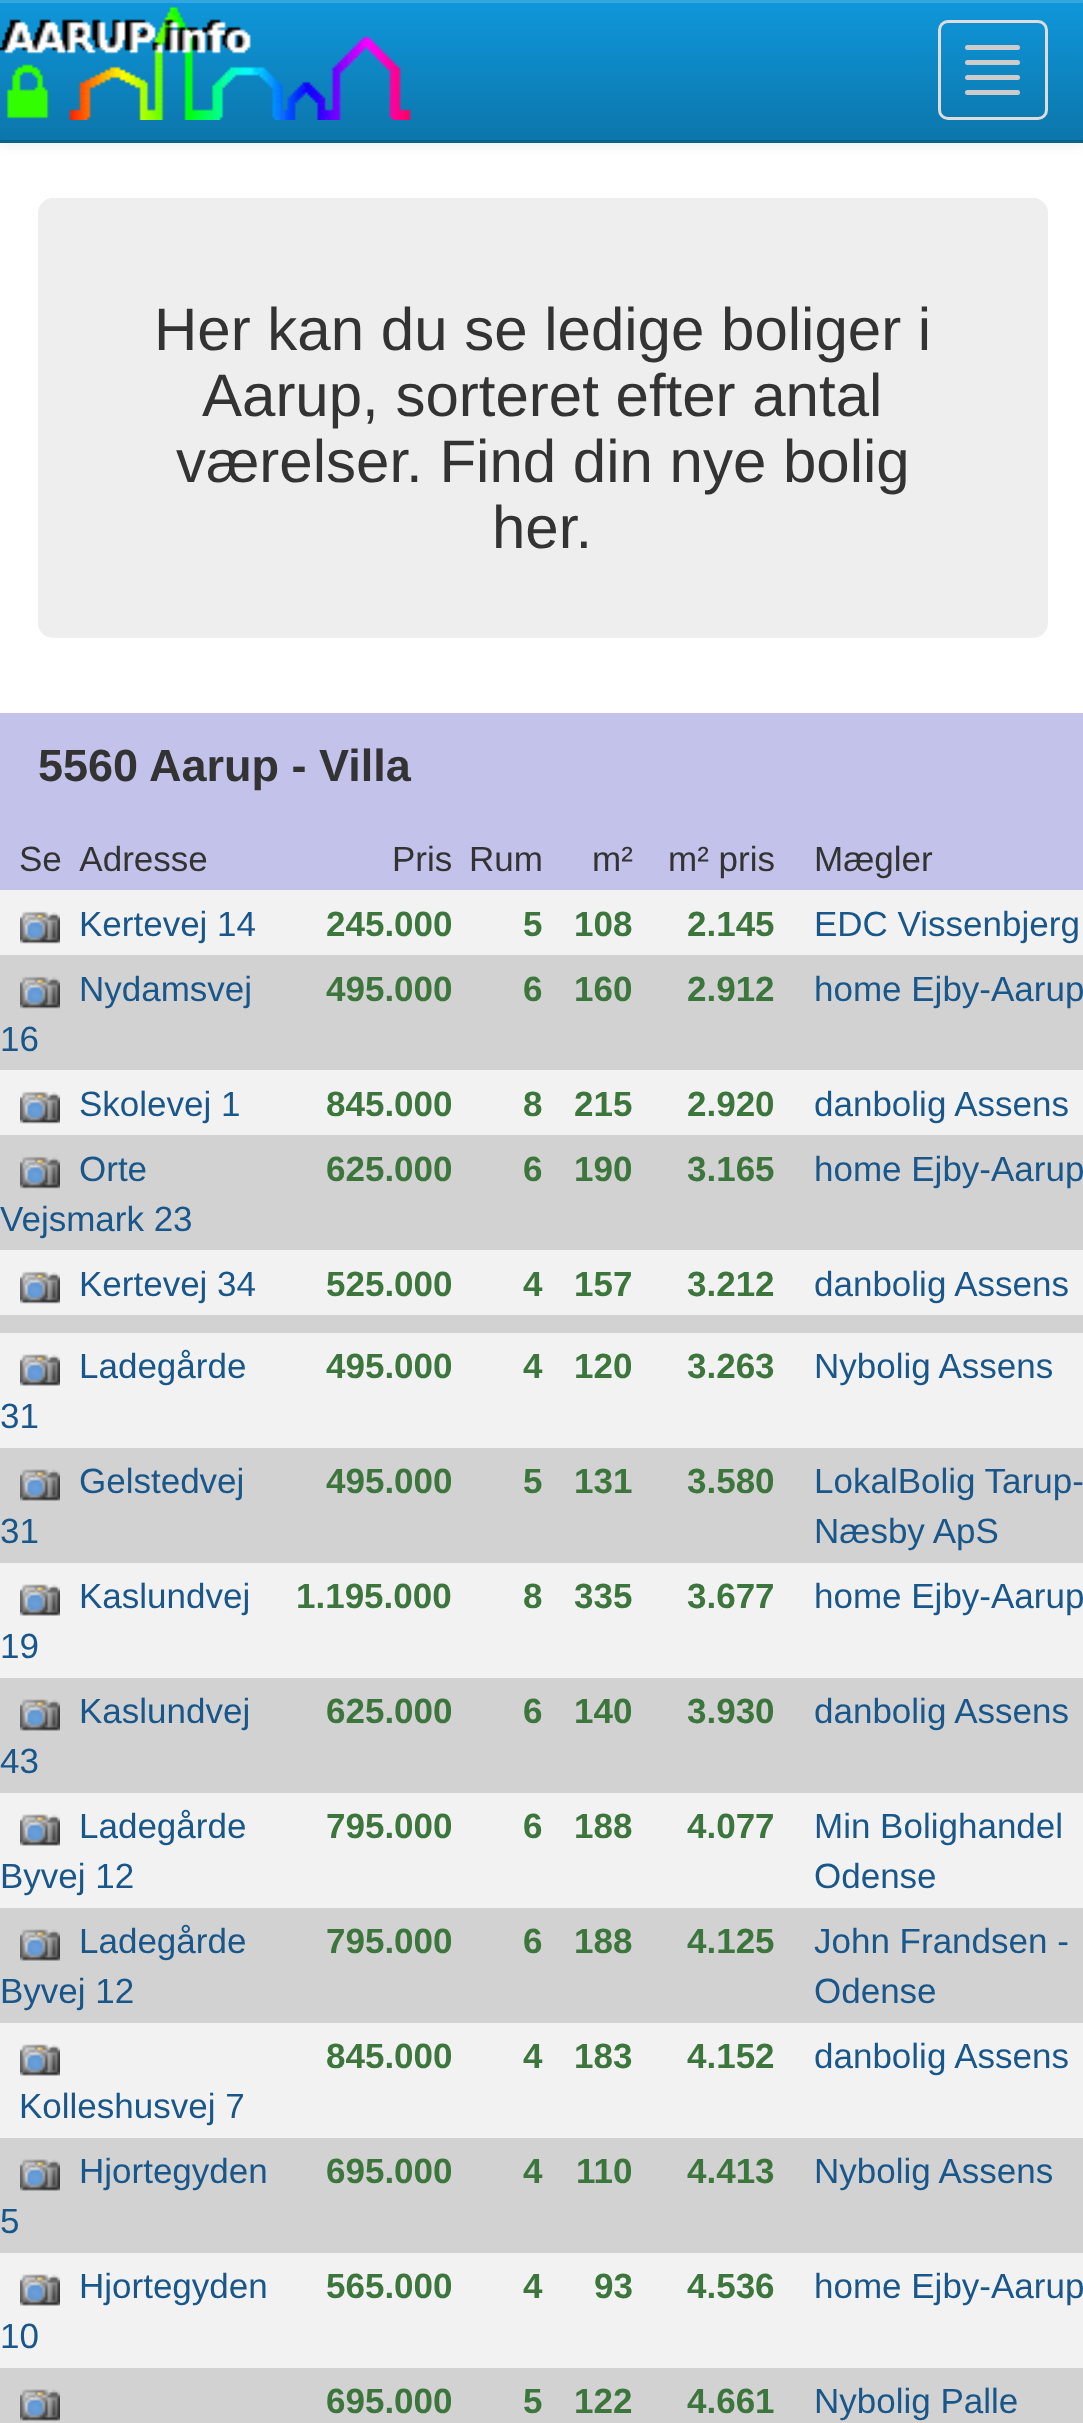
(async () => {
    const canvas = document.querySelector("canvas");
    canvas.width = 1083;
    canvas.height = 2423;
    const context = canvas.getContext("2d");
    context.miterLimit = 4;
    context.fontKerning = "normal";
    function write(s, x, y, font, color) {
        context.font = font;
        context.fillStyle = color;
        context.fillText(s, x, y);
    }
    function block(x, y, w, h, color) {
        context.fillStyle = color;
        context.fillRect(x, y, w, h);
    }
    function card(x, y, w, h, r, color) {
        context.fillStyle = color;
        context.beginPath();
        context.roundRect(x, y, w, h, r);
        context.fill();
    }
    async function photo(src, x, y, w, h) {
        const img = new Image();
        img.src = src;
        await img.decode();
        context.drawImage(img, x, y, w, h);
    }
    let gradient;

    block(0, 0, 1083, 2423, "rgb(255, 255, 255)");
    context.fillStyle = "rgba(0, 0, 0, 0.07)";
    context.filter = "blur(6px)";
    context.beginPath();
    context.rect(0, 3, 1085, 142);
    context.fill();
    context.filter = "none";
    gradient = context.createLinearGradient(543, 0, 543, 140);
    gradient.addColorStop(0, "rgb(15, 151, 219)");
    gradient.addColorStop(1, "rgb(12, 118, 171)");
    context.fillStyle = gradient;
    context.fillRect(0, 3, 1083, 137);
    block(0, 0, 1083, 3, "rgb(51, 166, 224)");
    block(0, 140, 1083, 3, "rgb(10, 97, 140)");
    await photo("media/1.png", 0, 7, 411, 113);
    context.beginPath();
    context.roundRect(939.5, 21.5, 107, 97, 8.5);
    context.strokeStyle = "rgb(221, 221, 221)";
    context.lineWidth = 3;
    context.stroke();
    card(965, 45, 55, 5, 2.5, "rgb(204, 204, 204)");
    card(965, 60, 55, 5, 2.5, "rgb(204, 204, 204)");
    card(965, 75, 55, 5, 2.5, "rgb(204, 204, 204)");
    card(965, 90, 55, 5, 2.5, "rgb(204, 204, 204)");
    card(38, 198, 1010, 440, 15, "rgb(238, 238, 238)");
    write("Her kan du se ledige boliger i", 154, 350, "60px Liberation Sans", "rgb(51, 51, 51)");
    write("Aarup, sorteret efter antal", 202, 416, "60px Liberation Sans", "rgb(51, 51, 51)");
    write("værelser. Find din nye bolig", 176, 482, "60px Liberation Sans", "rgb(51, 51, 51)");
    write("her.", 492, 548, "60px Liberation Sans", "rgb(51, 51, 51)");
    block(0, 713, 1083, 177, "rgb(194, 194, 234)");
    write("5560 Aarup - Villa", 38, 781, "bold 45px Liberation Sans", "rgb(51, 51, 51)");
    write("Se  Adresse", 19, 871, "35px Liberation Sans", "rgb(51, 51, 51)");
    write("Pris", 392, 871, "35px Liberation Sans", "rgb(51, 51, 51)");
    write("Rum", 469, 871, "35px Liberation Sans", "rgb(51, 51, 51)");
    write("m²", 592, 871, "35px Liberation Sans", "rgb(51, 51, 51)");
    write("m² pris", 668, 871, "35px Liberation Sans", "rgb(51, 51, 51)");
    write("Mægler", 814, 871, "35px Liberation Sans", "rgb(51, 51, 51)");
    block(0, 890, 1083, 65, "rgb(242, 242, 242)");
    await photo("media/2.png", 20, 911, 40, 33);
    write("Kertevej 14", 79, 936, "35px Liberation Sans", "rgb(25, 86, 138)");
    write("245.000", 326, 936, "bold 35px Liberation Sans", "rgb(60, 118, 61)");
    write("5", 523, 936, "bold 35px Liberation Sans", "rgb(60, 118, 61)");
    write("108", 574, 936, "bold 35px Liberation Sans", "rgb(60, 118, 61)");
    write("2.145", 687, 936, "bold 35px Liberation Sans", "rgb(60, 118, 61)");
    write("EDC Vissenbjerg", 814, 936, "35px Liberation Sans", "rgb(25, 86, 138)");
    block(0, 955, 1083, 115, "rgb(210, 210, 210)");
    await photo("media/3.png", 20, 976, 40, 33);
    write("Nydamsvej", 79, 1001, "35px Liberation Sans", "rgb(25, 86, 138)");
    write("16", 0, 1051, "35px Liberation Sans", "rgb(25, 86, 138)");
    write("495.000", 326, 1001, "bold 35px Liberation Sans", "rgb(60, 118, 61)");
    write("6", 523, 1001, "bold 35px Liberation Sans", "rgb(60, 118, 61)");
    write("160", 574, 1001, "bold 35px Liberation Sans", "rgb(60, 118, 61)");
    write("2.912", 687, 1001, "bold 35px Liberation Sans", "rgb(60, 118, 61)");
    write("home Ejby-Aarup", 814, 1001, "35px Liberation Sans", "rgb(25, 86, 138)");
    block(0, 1070, 1083, 65, "rgb(242, 242, 242)");
    await photo("media/2.png", 20, 1091, 40, 33);
    write("Skolevej 1", 79, 1116, "35px Liberation Sans", "rgb(25, 86, 138)");
    write("845.000", 326, 1116, "bold 35px Liberation Sans", "rgb(60, 118, 61)");
    write("8", 523, 1116, "bold 35px Liberation Sans", "rgb(60, 118, 61)");
    write("215", 574, 1116, "bold 35px Liberation Sans", "rgb(60, 118, 61)");
    write("2.920", 687, 1116, "bold 35px Liberation Sans", "rgb(60, 118, 61)");
    write("danbolig Assens", 814, 1116, "35px Liberation Sans", "rgb(25, 86, 138)");
    block(0, 1135, 1083, 115, "rgb(210, 210, 210)");
    await photo("media/4.png", 20, 1156, 40, 33);
    write("Orte", 79, 1181, "35px Liberation Sans", "rgb(25, 86, 138)");
    write("Vejsmark 23", 0, 1231, "35px Liberation Sans", "rgb(25, 86, 138)");
    write("625.000", 326, 1181, "bold 35px Liberation Sans", "rgb(60, 118, 61)");
    write("6", 523, 1181, "bold 35px Liberation Sans", "rgb(60, 118, 61)");
    write("190", 574, 1181, "bold 35px Liberation Sans", "rgb(60, 118, 61)");
    write("3.165", 687, 1181, "bold 35px Liberation Sans", "rgb(60, 118, 61)");
    write("home Ejby-Aarup", 814, 1181, "35px Liberation Sans", "rgb(25, 86, 138)");
    block(0, 1250, 1083, 65, "rgb(242, 242, 242)");
    await photo("media/2.png", 20, 1271, 40, 33);
    write("Kertevej 34", 79, 1296, "35px Liberation Sans", "rgb(25, 86, 138)");
    write("525.000", 326, 1296, "bold 35px Liberation Sans", "rgb(60, 118, 61)");
    write("4", 523, 1296, "bold 35px Liberation Sans", "rgb(60, 118, 61)");
    write("157", 574, 1296, "bold 35px Liberation Sans", "rgb(60, 118, 61)");
    write("3.212", 687, 1296, "bold 35px Liberation Sans", "rgb(60, 118, 61)");
    write("danbolig Assens", 814, 1296, "35px Liberation Sans", "rgb(25, 86, 138)");
    block(0, 1315, 1083, 18, "rgb(210, 210, 210)");
    block(0, 1333, 1083, 115, "rgb(242, 242, 242)");
    await photo("media/5.png", 20, 1354, 40, 32);
    write("Ladegårde", 79, 1378, "35px Liberation Sans", "rgb(25, 86, 138)");
    write("31", 0, 1428, "35px Liberation Sans", "rgb(25, 86, 138)");
    write("495.000", 326, 1378, "bold 35px Liberation Sans", "rgb(60, 118, 61)");
    write("4", 523, 1378, "bold 35px Liberation Sans", "rgb(60, 118, 61)");
    write("120", 574, 1378, "bold 35px Liberation Sans", "rgb(60, 118, 61)");
    write("3.263", 687, 1378, "bold 35px Liberation Sans", "rgb(60, 118, 61)");
    write("Nybolig Assens", 814, 1378, "35px Liberation Sans", "rgb(25, 86, 138)");
    block(0, 1448, 1083, 115, "rgb(210, 210, 210)");
    await photo("media/6.png", 20, 1469, 40, 32);
    write("Gelstedvej", 79, 1493, "35px Liberation Sans", "rgb(25, 86, 138)");
    write("31", 0, 1543, "35px Liberation Sans", "rgb(25, 86, 138)");
    write("495.000", 326, 1493, "bold 35px Liberation Sans", "rgb(60, 118, 61)");
    write("5", 523, 1493, "bold 35px Liberation Sans", "rgb(60, 118, 61)");
    write("131", 574, 1493, "bold 35px Liberation Sans", "rgb(60, 118, 61)");
    write("3.580", 687, 1493, "bold 35px Liberation Sans", "rgb(60, 118, 61)");
    write("LokalBolig Tarup-", 814, 1493, "35px Liberation Sans", "rgb(25, 86, 138)");
    write("Næsby ApS", 814, 1543, "35px Liberation Sans", "rgb(25, 86, 138)");
    block(0, 1563, 1083, 115, "rgb(242, 242, 242)");
    await photo("media/5.png", 20, 1584, 40, 32);
    write("Kaslundvej", 79, 1608, "35px Liberation Sans", "rgb(25, 86, 138)");
    write("19", 0, 1658, "35px Liberation Sans", "rgb(25, 86, 138)");
    write("1.195.000", 296, 1608, "bold 35px Liberation Sans", "rgb(60, 118, 61)");
    write("8", 523, 1608, "bold 35px Liberation Sans", "rgb(60, 118, 61)");
    write("335", 574, 1608, "bold 35px Liberation Sans", "rgb(60, 118, 61)");
    write("3.677", 687, 1608, "bold 35px Liberation Sans", "rgb(60, 118, 61)");
    write("home Ejby-Aarup", 814, 1608, "35px Liberation Sans", "rgb(25, 86, 138)");
    block(0, 1678, 1083, 115, "rgb(210, 210, 210)");
    await photo("media/6.png", 20, 1699, 40, 32);
    write("Kaslundvej", 79, 1723, "35px Liberation Sans", "rgb(25, 86, 138)");
    write("43", 0, 1773, "35px Liberation Sans", "rgb(25, 86, 138)");
    write("625.000", 326, 1723, "bold 35px Liberation Sans", "rgb(60, 118, 61)");
    write("6", 523, 1723, "bold 35px Liberation Sans", "rgb(60, 118, 61)");
    write("140", 574, 1723, "bold 35px Liberation Sans", "rgb(60, 118, 61)");
    write("3.930", 687, 1723, "bold 35px Liberation Sans", "rgb(60, 118, 61)");
    write("danbolig Assens", 814, 1723, "35px Liberation Sans", "rgb(25, 86, 138)");
    block(0, 1793, 1083, 115, "rgb(242, 242, 242)");
    await photo("media/5.png", 20, 1814, 40, 32);
    write("Ladegårde", 79, 1838, "35px Liberation Sans", "rgb(25, 86, 138)");
    write("Byvej 12", 0, 1888, "35px Liberation Sans", "rgb(25, 86, 138)");
    write("795.000", 326, 1838, "bold 35px Liberation Sans", "rgb(60, 118, 61)");
    write("6", 523, 1838, "bold 35px Liberation Sans", "rgb(60, 118, 61)");
    write("188", 574, 1838, "bold 35px Liberation Sans", "rgb(60, 118, 61)");
    write("4.077", 687, 1838, "bold 35px Liberation Sans", "rgb(60, 118, 61)");
    write("Min Bolighandel", 814, 1838, "35px Liberation Sans", "rgb(25, 86, 138)");
    write("Odense", 814, 1888, "35px Liberation Sans", "rgb(25, 86, 138)");
    block(0, 1908, 1083, 115, "rgb(210, 210, 210)");
    await photo("media/6.png", 20, 1929, 40, 32);
    write("Ladegårde", 79, 1953, "35px Liberation Sans", "rgb(25, 86, 138)");
    write("Byvej 12", 0, 2003, "35px Liberation Sans", "rgb(25, 86, 138)");
    write("795.000", 326, 1953, "bold 35px Liberation Sans", "rgb(60, 118, 61)");
    write("6", 523, 1953, "bold 35px Liberation Sans", "rgb(60, 118, 61)");
    write("188", 574, 1953, "bold 35px Liberation Sans", "rgb(60, 118, 61)");
    write("4.125", 687, 1953, "bold 35px Liberation Sans", "rgb(60, 118, 61)");
    write("John Frandsen -", 814, 1953, "35px Liberation Sans", "rgb(25, 86, 138)");
    write("Odense", 814, 2003, "35px Liberation Sans", "rgb(25, 86, 138)");
    block(0, 2023, 1083, 115, "rgb(242, 242, 242)");
    write("845.000", 326, 2068, "bold 35px Liberation Sans", "rgb(60, 118, 61)");
    write("4", 523, 2068, "bold 35px Liberation Sans", "rgb(60, 118, 61)");
    write("183", 574, 2068, "bold 35px Liberation Sans", "rgb(60, 118, 61)");
    write("4.152", 687, 2068, "bold 35px Liberation Sans", "rgb(60, 118, 61)");
    write("danbolig Assens", 814, 2068, "35px Liberation Sans", "rgb(25, 86, 138)");
    await photo("media/5.png", 20, 2044, 40, 32);
    write("Kolleshusvej 7", 19, 2118, "35px Liberation Sans", "rgb(25, 86, 138)");
    block(0, 2138, 1083, 115, "rgb(210, 210, 210)");
    await photo("media/6.png", 20, 2159, 40, 32);
    write("Hjortegyden", 79, 2183, "35px Liberation Sans", "rgb(25, 86, 138)");
    write("5", 0, 2233, "35px Liberation Sans", "rgb(25, 86, 138)");
    write("695.000", 326, 2183, "bold 35px Liberation Sans", "rgb(60, 118, 61)");
    write("4", 523, 2183, "bold 35px Liberation Sans", "rgb(60, 118, 61)");
    write("110", 576, 2183, "bold 35px Liberation Sans", "rgb(60, 118, 61)");
    write("4.413", 687, 2183, "bold 35px Liberation Sans", "rgb(60, 118, 61)");
    write("Nybolig Assens", 814, 2183, "35px Liberation Sans", "rgb(25, 86, 138)");
    block(0, 2253, 1083, 115, "rgb(242, 242, 242)");
    await photo("media/5.png", 20, 2274, 40, 32);
    write("Hjortegyden", 79, 2298, "35px Liberation Sans", "rgb(25, 86, 138)");
    write("10", 0, 2348, "35px Liberation Sans", "rgb(25, 86, 138)");
    write("565.000", 326, 2298, "bold 35px Liberation Sans", "rgb(60, 118, 61)");
    write("4", 523, 2298, "bold 35px Liberation Sans", "rgb(60, 118, 61)");
    write("93", 594, 2298, "bold 35px Liberation Sans", "rgb(60, 118, 61)");
    write("4.536", 687, 2298, "bold 35px Liberation Sans", "rgb(60, 118, 61)");
    write("home Ejby-Aarup", 814, 2298, "35px Liberation Sans", "rgb(25, 86, 138)");
    block(0, 2368, 1083, 55, "rgb(210, 210, 210)");
    await photo("media/6.png", 20, 2389, 40, 32);
    write("695.000", 326, 2413, "bold 35px Liberation Sans", "rgb(60, 118, 61)");
    write("5", 523, 2413, "bold 35px Liberation Sans", "rgb(60, 118, 61)");
    write("122", 574, 2413, "bold 35px Liberation Sans", "rgb(60, 118, 61)");
    write("4.661", 687, 2413, "bold 35px Liberation Sans", "rgb(60, 118, 61)");
    write("Nybolig Palle", 814, 2413, "35px Liberation Sans", "rgb(25, 86, 138)");
})();
